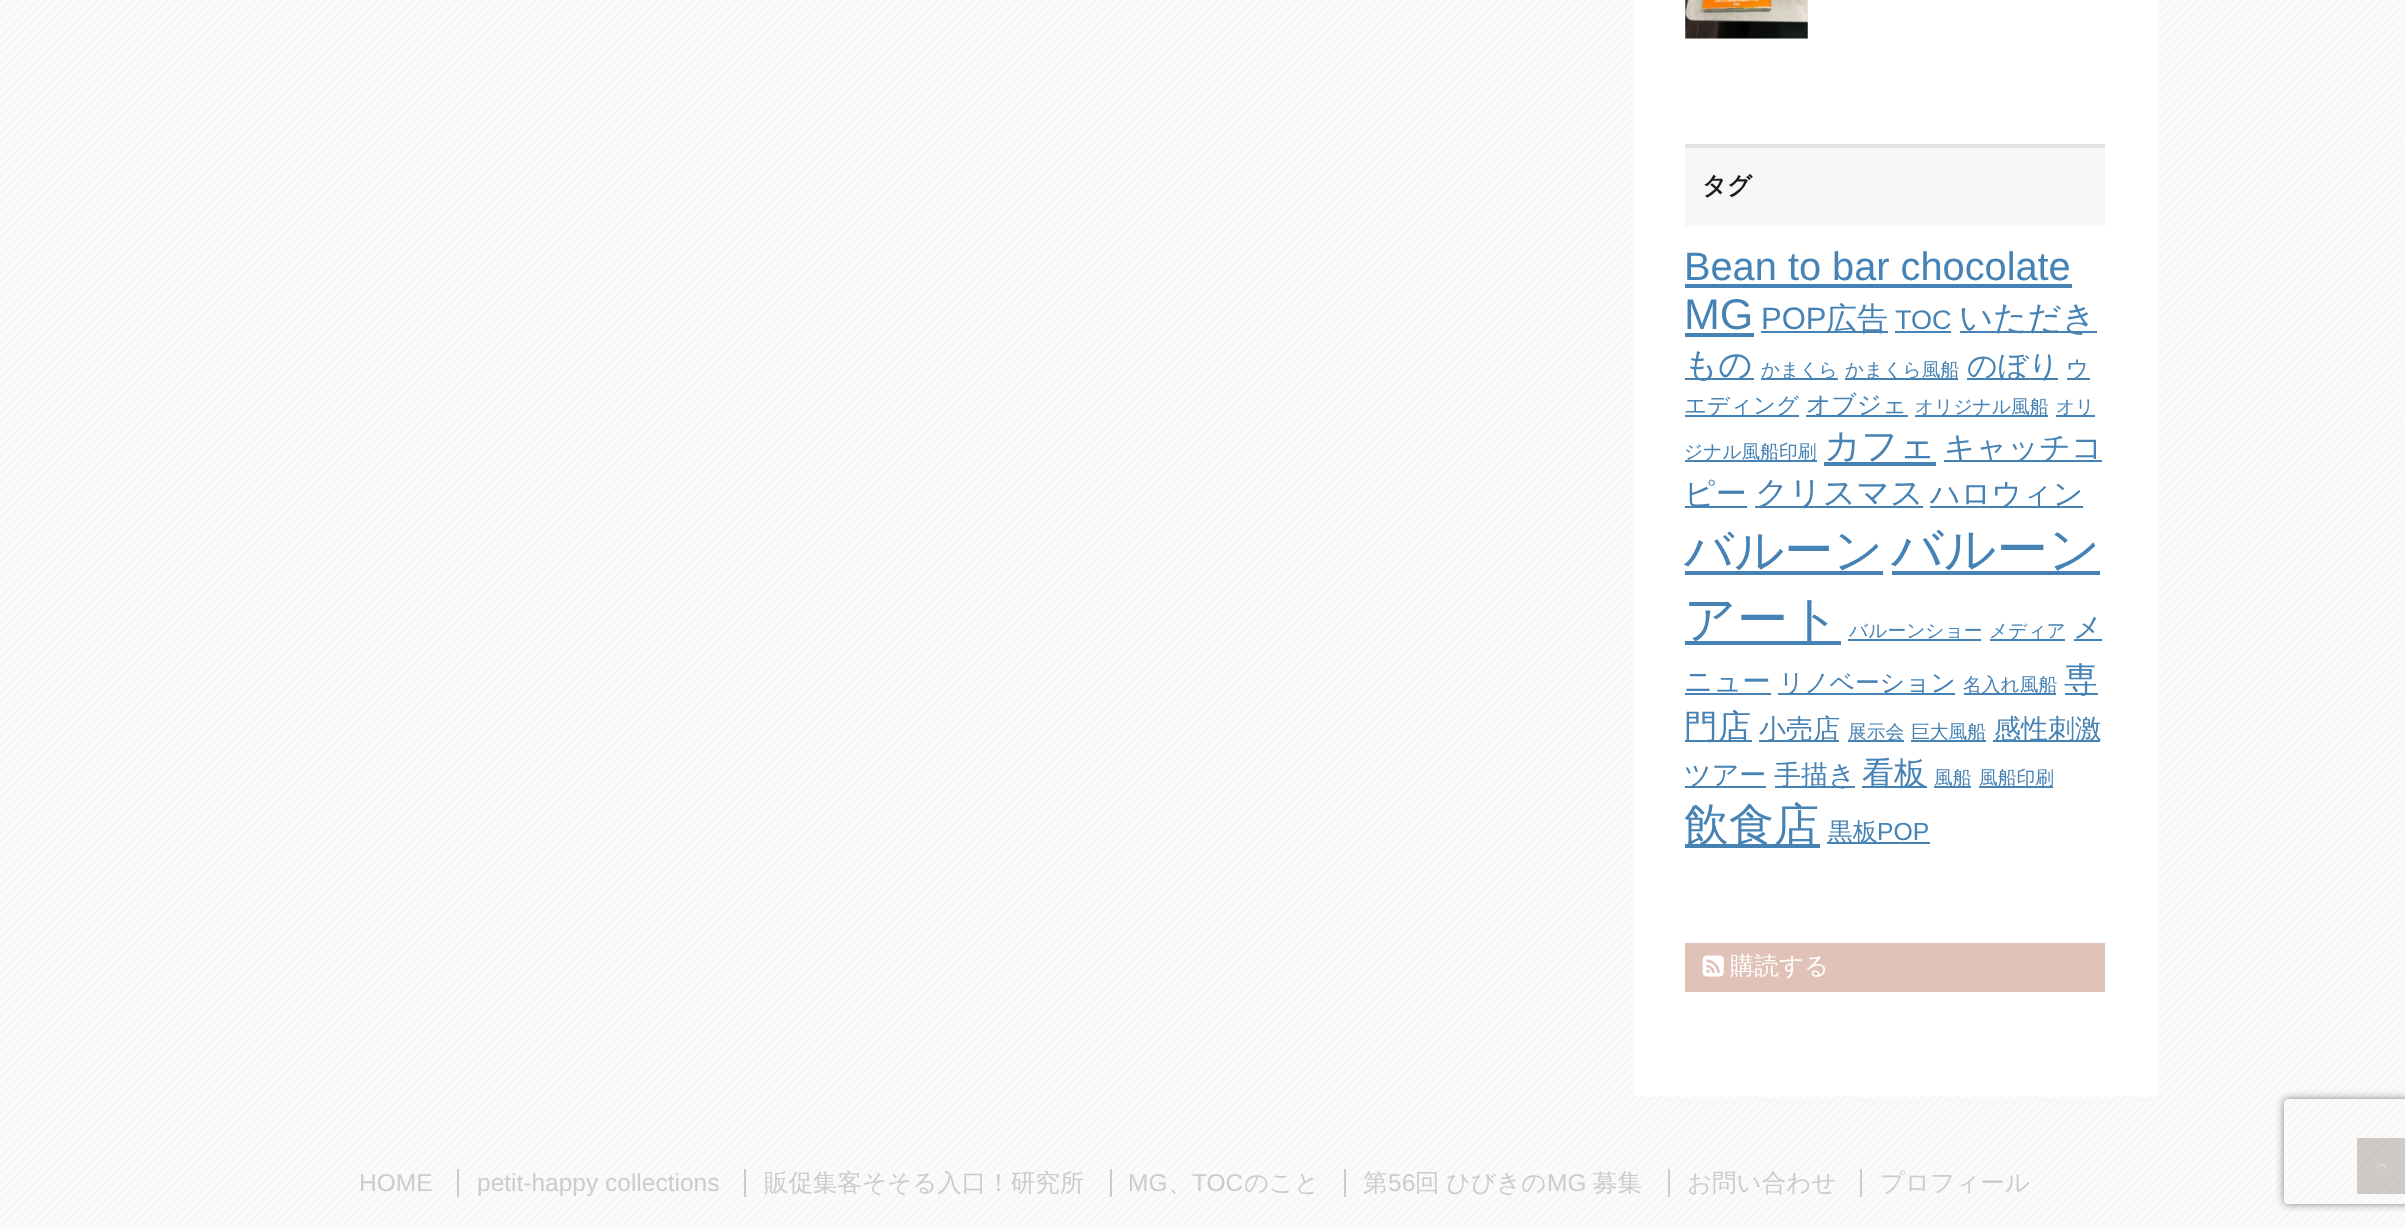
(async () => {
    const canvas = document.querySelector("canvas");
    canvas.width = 2405;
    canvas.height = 1228;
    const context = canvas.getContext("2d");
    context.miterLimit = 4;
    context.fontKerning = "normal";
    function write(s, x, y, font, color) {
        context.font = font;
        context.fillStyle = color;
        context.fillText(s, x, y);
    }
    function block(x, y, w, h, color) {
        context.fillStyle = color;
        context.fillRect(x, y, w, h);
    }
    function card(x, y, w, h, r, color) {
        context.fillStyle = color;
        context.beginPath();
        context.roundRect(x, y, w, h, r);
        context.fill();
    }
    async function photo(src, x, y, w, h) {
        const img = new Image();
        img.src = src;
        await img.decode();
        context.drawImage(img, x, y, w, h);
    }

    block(0, 0, 2405, 1228, "rgb(251, 251, 251)");
    await photo("media/1.png", 0, 0, 2405, 1228);
    card(1633, -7, 525, 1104, 7, "rgb(255, 255, 255)");
    await photo("media/2.png", 1685, 0, 123, 39);
    block(1685, 148, 420, 78, "rgb(247, 247, 247)");
    block(1685, 144, 420, 4, "rgb(228, 228, 228)");
    write("タグ", 1702, 194, "bold 24.5px WenQuanYi Zen Hei", "rgb(26, 26, 26)");
    write("Bean to bar chocolate", 1684, 280, "39.75px Liberation Sans", "rgb(70, 130, 180)");
    block(1685, 284, 387, 4, "rgb(70, 130, 180)");
    write("MG", 1684, 329, "43px Liberation Sans", "rgb(70, 130, 180)");
    block(1685, 333, 69, 4, "rgb(70, 130, 180)");
    write("POP", 1761, 329, "31px Liberation Sans", "rgb(70, 130, 180)");
    block(1761, 331, 127, 2, "rgb(70, 130, 180)");
    write("広告", 1826, 329, "500 31px WenQuanYi Zen Hei", "rgb(70, 130, 180)");
    write("TOC", 1895, 329, "27px Liberation Sans", "rgb(70, 130, 180)");
    block(1895, 331, 56, 2, "rgb(70, 130, 180)");
    block(1960, 331, 137, 2, "rgb(70, 130, 180)");
    write("いただき", 1959, 329, "500 33.5px WenQuanYi Zen Hei", "rgb(70, 130, 180)");
    block(1685, 378, 69, 2, "rgb(70, 130, 180)");
    write("もの", 1684, 376, "500 33.5px WenQuanYi Zen Hei", "rgb(70, 130, 180)");
    block(1761, 378, 77, 2, "rgb(70, 130, 180)");
    write("かまくら", 1761, 376, "500 18.75px WenQuanYi Zen Hei", "rgb(70, 130, 180)");
    block(1845, 378, 113, 2, "rgb(70, 130, 180)");
    write("かまくら風船", 1845, 376, "500 18.75px WenQuanYi Zen Hei", "rgb(70, 130, 180)");
    block(1967, 378, 91, 2, "rgb(70, 130, 180)");
    write("のぼり", 1967, 376, "500 30px WenQuanYi Zen Hei", "rgb(70, 130, 180)");
    block(2067, 378, 23, 2, "rgb(70, 130, 180)");
    write("ウ", 2066, 376, "500 22.5px WenQuanYi Zen Hei", "rgb(70, 130, 180)");
    block(1685, 415, 114, 2, "rgb(70, 130, 180)");
    write("エディング", 1684, 413, "500 22.5px WenQuanYi Zen Hei", "rgb(70, 130, 180)");
    block(1806, 415, 102, 2, "rgb(70, 130, 180)");
    write("オブジェ", 1806, 413, "500 24.75px WenQuanYi Zen Hei", "rgb(70, 130, 180)");
    block(1915, 415, 133, 2, "rgb(70, 130, 180)");
    write("オリジナル風船", 1915, 413, "500 18.75px WenQuanYi Zen Hei", "rgb(70, 130, 180)");
    block(2056, 415, 39, 2, "rgb(70, 130, 180)");
    write("オリ", 2056, 413, "500 18.75px WenQuanYi Zen Hei", "rgb(70, 130, 180)");
    block(1685, 460, 132, 2, "rgb(70, 130, 180)");
    write("ジナル風船印刷", 1684, 458, "500 18.75px WenQuanYi Zen Hei", "rgb(70, 130, 180)");
    write("カフェ", 1824, 458, "500 36.5px WenQuanYi Zen Hei", "rgb(70, 130, 180)");
    block(1824, 462, 112, 4, "rgb(70, 130, 180)");
    block(1944, 460, 158, 2, "rgb(70, 130, 180)");
    write("キャッチコ", 1944, 458, "500 31px WenQuanYi Zen Hei", "rgb(70, 130, 180)");
    block(1685, 506, 62, 2, "rgb(70, 130, 180)");
    write("ピー", 1684, 504, "500 31px WenQuanYi Zen Hei", "rgb(70, 130, 180)");
    block(1755, 506, 168, 2, "rgb(70, 130, 180)");
    write("クリスマス", 1755, 504, "500 33px WenQuanYi Zen Hei", "rgb(70, 130, 180)");
    block(1930, 506, 153, 2, "rgb(70, 130, 180)");
    write("ハロウィン", 1930, 504, "500 30px WenQuanYi Zen Hei", "rgb(70, 130, 180)");
    write("バルーン", 1684, 567, "500 49px WenQuanYi Zen Hei", "rgb(70, 130, 180)");
    block(1685, 571, 198, 4, "rgb(70, 130, 180)");
    write("バルーン", 1891, 567, "500 51.5px WenQuanYi Zen Hei", "rgb(70, 130, 180)");
    block(1892, 571, 208, 4, "rgb(70, 130, 180)");
    block(1685, 641, 156, 4, "rgb(70, 130, 180)");
    write("アート", 1684, 637, "500 51.5px WenQuanYi Zen Hei", "rgb(70, 130, 180)");
    write("バルーンショー", 1849, 637, "500 18.75px WenQuanYi Zen Hei", "rgb(70, 130, 180)");
    block(1848, 639, 133, 2, "rgb(70, 130, 180)");
    block(1990, 639, 75, 2, "rgb(70, 130, 180)");
    write("メディア", 1989, 637, "500 18.75px WenQuanYi Zen Hei", "rgb(70, 130, 180)");
    write("メ", 2073, 637, "500 28.5px WenQuanYi Zen Hei", "rgb(70, 130, 180)");
    block(2074, 639, 28, 2, "rgb(70, 130, 180)");
    write("ニュー", 1684, 691, "500 28.5px WenQuanYi Zen Hei", "rgb(70, 130, 180)");
    block(1685, 693, 86, 2, "rgb(70, 130, 180)");
    block(1778, 693, 177, 2, "rgb(70, 130, 180)");
    write("リノベーション", 1779, 691, "500 24.75px WenQuanYi Zen Hei", "rgb(70, 130, 180)");
    block(1964, 693, 92, 2, "rgb(70, 130, 180)");
    write("名入れ風船", 1963, 691, "500 18.75px WenQuanYi Zen Hei", "rgb(70, 130, 180)");
    block(2065, 693, 33, 2, "rgb(70, 130, 180)");
    write("専", 2064, 691, "500 33.5px WenQuanYi Zen Hei", "rgb(70, 130, 180)");
    block(1685, 740, 67, 2, "rgb(70, 130, 180)");
    write("門店", 1684, 738, "500 33.5px WenQuanYi Zen Hei", "rgb(70, 130, 180)");
    block(1759, 740, 80, 2, "rgb(70, 130, 180)");
    write("小売店", 1759, 738, "500 27px WenQuanYi Zen Hei", "rgb(70, 130, 180)");
    block(1848, 740, 56, 2, "rgb(70, 130, 180)");
    write("展示会", 1848, 738, "500 18.75px WenQuanYi Zen Hei", "rgb(70, 130, 180)");
    block(1911, 740, 75, 2, "rgb(70, 130, 180)");
    write("巨大風船", 1911, 738, "500 18.75px WenQuanYi Zen Hei", "rgb(70, 130, 180)");
    block(1993, 740, 107, 2, "rgb(70, 130, 180)");
    write("感性刺激", 1994, 738, "500 27px WenQuanYi Zen Hei", "rgb(70, 130, 180)");
    block(1685, 786, 81, 2, "rgb(70, 130, 180)");
    write("ツアー", 1684, 784, "500 27px WenQuanYi Zen Hei", "rgb(70, 130, 180)");
    block(1775, 786, 80, 2, "rgb(70, 130, 180)");
    write("手描き", 1774, 784, "500 27px WenQuanYi Zen Hei", "rgb(70, 130, 180)");
    block(1862, 786, 65, 2, "rgb(70, 130, 180)");
    write("看板", 1862, 784, "500 32px WenQuanYi Zen Hei", "rgb(70, 130, 180)");
    block(1934, 786, 37, 2, "rgb(70, 130, 180)");
    write("風船", 1934, 784, "500 18.75px WenQuanYi Zen Hei", "rgb(70, 130, 180)");
    block(1979, 786, 74, 2, "rgb(70, 130, 180)");
    write("風船印刷", 1979, 784, "500 18.75px WenQuanYi Zen Hei", "rgb(70, 130, 180)");
    block(1685, 844, 135, 4, "rgb(70, 130, 180)");
    write("飲食店", 1684, 840, "500 45px WenQuanYi Zen Hei", "rgb(70, 130, 180)");
    block(1827, 842, 103, 2, "rgb(70, 130, 180)");
    write("黒板", 1828, 840, "500 24.75px WenQuanYi Zen Hei", "rgb(70, 130, 180)");
    write("POP", 1877, 840, "24.75px Liberation Sans", "rgb(70, 130, 180)");
    block(1685, 943, 420, 49, "rgb(224, 194, 184)");
    await photo("media/3.png", 1702, 955, 22, 22);
    write("購読する", 1730, 974, "500 24.5px WenQuanYi Zen Hei", "rgb(255, 255, 255)");
    write("HOME", 359, 1191, "24.5px Liberation Sans", "rgb(204, 204, 204)");
    write("petit-happy collections", 477, 1191, "24.5px Liberation Sans", "rgb(204, 204, 204)");
    block(457, 1169, 2, 28, "rgb(204, 204, 204)");
    write("販促集客そそる入口！研究所", 764, 1191, "500 24.5px WenQuanYi Zen Hei", "rgb(204, 204, 204)");
    block(744, 1169, 2, 28, "rgb(204, 204, 204)");
    write("MG", 1128, 1191, "24.5px Liberation Sans", "rgb(204, 204, 204)");
    block(1110, 1169, 2, 28, "rgb(204, 204, 204)");
    write("、", 1168, 1191, "500 24.5px WenQuanYi Zen Hei", "rgb(204, 204, 204)");
    write("TOC", 1192, 1191, "24.5px Liberation Sans", "rgb(204, 204, 204)");
    write("のこと", 1244, 1191, "500 24.5px WenQuanYi Zen Hei", "rgb(204, 204, 204)");
    write("第", 1363, 1191, "500 24.5px WenQuanYi Zen Hei", "rgb(204, 204, 204)");
    block(1344, 1169, 2, 28, "rgb(204, 204, 204)");
    write("56", 1388, 1191, "24.5px Liberation Sans", "rgb(204, 204, 204)");
    write("回", 1415, 1191, "500 24.5px WenQuanYi Zen Hei", "rgb(204, 204, 204)");
    write("ひびきの", 1446, 1191, "500 24.5px WenQuanYi Zen Hei", "rgb(204, 204, 204)");
    write("MG", 1547, 1191, "24.5px Liberation Sans", "rgb(204, 204, 204)");
    write("募集", 1593, 1191, "500 24.5px WenQuanYi Zen Hei", "rgb(204, 204, 204)");
    write("お問い合わせ", 1687, 1191, "500 24.5px WenQuanYi Zen Hei", "rgb(204, 204, 204)");
    block(1668, 1169, 2, 28, "rgb(204, 204, 204)");
    write("プロフィール", 1880, 1191, "500 24.5px WenQuanYi Zen Hei", "rgb(204, 204, 204)");
    block(1860, 1169, 2, 28, "rgb(204, 204, 204)");
    context.save();
    context.beginPath();
    context.moveTo(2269, 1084);
    context.lineTo(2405, 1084);
    context.lineTo(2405, 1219);
    context.lineTo(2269, 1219);
    context.closePath();
    context.moveTo(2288, 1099);
    context.lineTo(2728, 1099);
    context.bezierCurveTo(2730, 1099, 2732, 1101, 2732, 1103);
    context.lineTo(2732, 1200);
    context.bezierCurveTo(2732, 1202, 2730, 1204, 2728, 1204);
    context.lineTo(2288, 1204);
    context.bezierCurveTo(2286, 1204, 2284, 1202, 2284, 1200);
    context.lineTo(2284, 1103);
    context.bezierCurveTo(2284, 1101, 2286, 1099, 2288, 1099);
    context.closePath();
    context.clip("evenodd");
    context.fillStyle = "rgb(128, 128, 128)";
    context.filter = "blur(4.5px)";
    context.beginPath();
    context.roundRect(2284, 1099, 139, 105, 4);
    context.fill();
    context.filter = "none";
    context.restore();
    block(2357, 1138, 48, 56, "rgba(102, 94, 83, 0.3)");
    await photo("media/4.png", 2376, 1162, 11, 7);
})();
